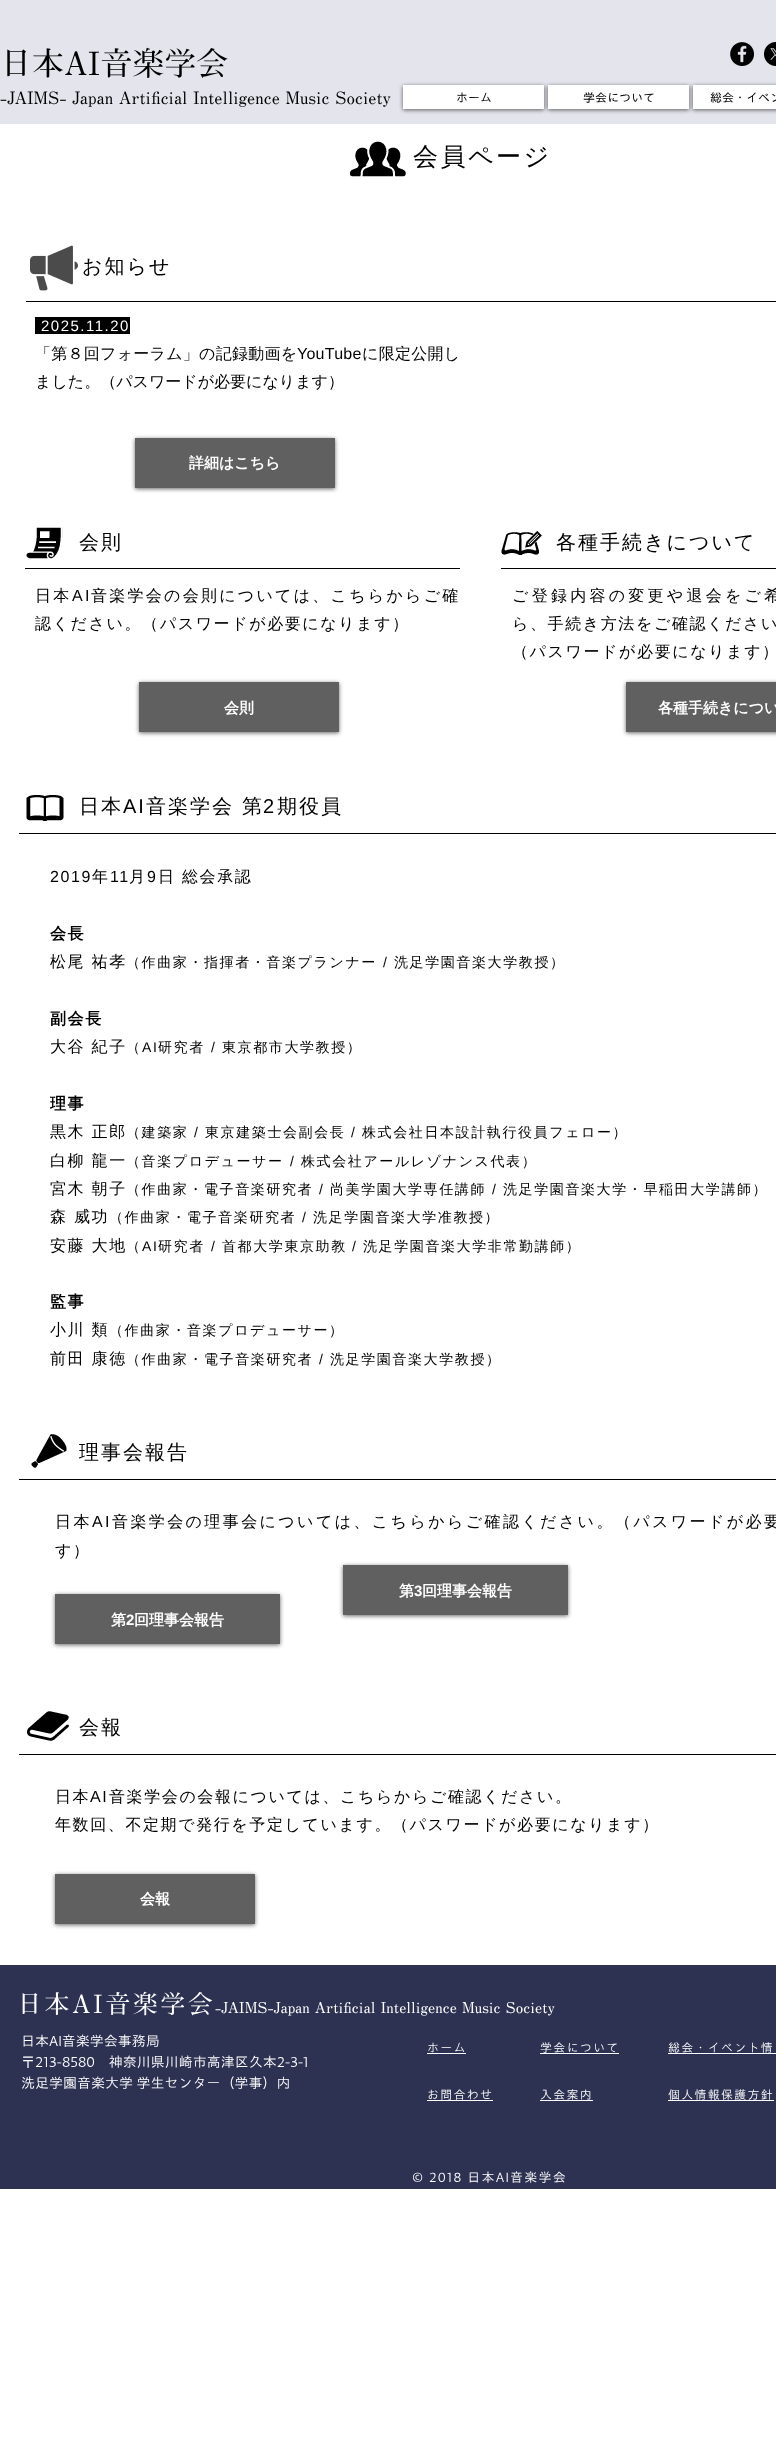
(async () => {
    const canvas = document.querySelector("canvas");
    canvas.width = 776;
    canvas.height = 2456;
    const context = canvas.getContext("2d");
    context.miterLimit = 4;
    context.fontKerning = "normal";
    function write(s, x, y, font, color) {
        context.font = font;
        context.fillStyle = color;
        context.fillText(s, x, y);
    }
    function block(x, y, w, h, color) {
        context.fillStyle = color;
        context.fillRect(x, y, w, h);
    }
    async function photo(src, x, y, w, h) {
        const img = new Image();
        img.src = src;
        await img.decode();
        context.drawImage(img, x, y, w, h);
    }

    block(0, 0, 776, 2456, "rgb(255, 255, 255)");
    block(0, 0, 776, 124, "rgb(227, 228, 236)");
    write("日本AI音楽学会", 0, 75, "500 32px 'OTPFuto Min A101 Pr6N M'", "rgb(0, 0, 0)");
    write("-JAIMS- Japan Artificial Intelligence Music Society", 0, 104, "500 17px 'OTPFuto Min A101 Pr6N M'", "rgb(0, 0, 0)");
    await photo("media/1.png", 730, 42, 24, 24);
    await photo("media/2.png", 764, 42, 12, 24);
    context.fillStyle = "rgba(0, 0, 0, 0.6)";
    context.filter = "blur(2px)";
    context.beginPath();
    context.rect(403, 86, 141, 24);
    context.fill();
    context.filter = "none";
    block(403, 85, 141, 24, "rgb(255, 255, 255)");
    write("ホーム", 456, 102, "12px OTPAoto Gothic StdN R", "rgb(0, 0, 0)");
    context.fillStyle = "rgba(0, 0, 0, 0.6)";
    context.filter = "blur(2px)";
    context.beginPath();
    context.rect(548, 86, 141, 24);
    context.fill();
    context.filter = "none";
    block(548, 85, 141, 24, "rgb(255, 255, 255)");
    write("学会について", 583, 102, "12px OTPAoto Gothic StdN R", "rgb(0, 0, 0)");
    context.fillStyle = "rgba(0, 0, 0, 0.6)";
    context.filter = "blur(2px)";
    context.beginPath();
    context.rect(693, 86, 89, 24);
    context.fill();
    context.filter = "none";
    block(693, 85, 83, 24, "rgb(255, 255, 255)");
    write("総会・イベン", 710, 102, "12px OTPAoto Gothic StdN R", "rgb(0, 0, 0)");
    await photo("media/3.png", 350, 141, 56, 36);
    context.letterSpacing = "2.5px";
    write("会員ページ", 413, 165, "500 25px WenQuanYi Zen Hei", "rgb(0, 0, 0)");
    await photo("media/4.png", 30, 245, 48, 46);
    context.letterSpacing = "2px";
    write("お知らせ", 82, 273, "500 20px WenQuanYi Zen Hei", "rgb(0, 0, 0)");
    block(26, 301, 750, 1, "rgb(0, 0, 0)");
    block(35, 317, 95, 17, "rgb(0, 0, 0)");
    context.letterSpacing = "1.5px";
    write("2025.11.20", 41, 331, "15px Liberation Sans", "rgb(255, 255, 255)");
    context.letterSpacing = "0.25px";
    write("「第８回フォーラム」の記録動画を", 35, 359, "500 16px WenQuanYi Zen Hei", "rgb(0, 0, 0)");
    write("YouTube", 297, 359, "16px Liberation Sans", "rgb(0, 0, 0)");
    write("に限定公開し", 362, 359, "500 16px WenQuanYi Zen Hei", "rgb(0, 0, 0)");
    context.letterSpacing = "0px";
    write("ました。（パスワードが必要になります）", 35, 387, "500 16px WenQuanYi Zen Hei", "rgb(0, 0, 0)");
    context.fillStyle = "rgba(0, 0, 0, 0.6)";
    context.filter = "blur(2px)";
    context.beginPath();
    context.rect(135, 439, 200, 50);
    context.fill();
    context.filter = "none";
    block(135, 438, 200, 50, "rgb(96, 96, 96)");
    write("詳細はこちら", 189, 468, "bold 15px WenQuanYi Zen Hei", "rgb(255, 255, 255)");
    await photo("media/5.png", 26, 527, 37, 32);
    context.letterSpacing = "2px";
    write("会則", 79, 549, "500 20px WenQuanYi Zen Hei", "rgb(0, 0, 0)");
    block(25, 568, 435, 1, "rgb(0, 0, 0)");
    context.letterSpacing = "2.25px";
    write("日本", 35, 601, "500 16px WenQuanYi Zen Hei", "rgb(0, 0, 0)");
    write("AI", 72, 601, "16px Liberation Sans", "rgb(0, 0, 0)");
    write("音楽学会の会則については、こちらからご確", 91, 601, "500 16px WenQuanYi Zen Hei", "rgb(0, 0, 0)");
    context.letterSpacing = "1.6px";
    write("認ください。（パスワードが必要になります）", 35, 629, "500 16px WenQuanYi Zen Hei", "rgb(0, 0, 0)");
    context.fillStyle = "rgba(0, 0, 0, 0.6)";
    context.filter = "blur(2px)";
    context.beginPath();
    context.rect(139, 683, 200, 50);
    context.fill();
    context.filter = "none";
    block(139, 682, 200, 50, "rgb(96, 96, 96)");
    context.letterSpacing = "0px";
    write("会則", 224, 713, "bold 15px WenQuanYi Zen Hei", "rgb(255, 255, 255)");
    await photo("media/6.png", 501, 531, 41, 24);
    context.letterSpacing = "2px";
    write("各種手続きについて", 556, 549, "500 20px WenQuanYi Zen Hei", "rgb(0, 0, 0)");
    block(501, 568, 275, 1, "rgb(0, 0, 0)");
    context.letterSpacing = "3.25px";
    write("ご登録内容の変更や退会をご希", 512, 601, "500 16px WenQuanYi Zen Hei", "rgb(0, 0, 0)");
    context.letterSpacing = "1.6px";
    write("ら、手続き方法をご確認ください", 512, 629, "500 16px WenQuanYi Zen Hei", "rgb(0, 0, 0)");
    write("（パスワードが必要になります）", 512, 657, "500 16px WenQuanYi Zen Hei", "rgb(0, 0, 0)");
    context.fillStyle = "rgba(0, 0, 0, 0.6)";
    context.filter = "blur(2px)";
    context.beginPath();
    context.rect(626, 683, 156, 50);
    context.fill();
    context.filter = "none";
    block(626, 682, 150, 50, "rgb(96, 96, 96)");
    context.letterSpacing = "0px";
    write("各種手続きについ", 658, 713, "bold 15px WenQuanYi Zen Hei", "rgb(255, 255, 255)");
    await photo("media/7.png", 26, 795, 38, 26);
    context.letterSpacing = "2px";
    write("日本", 79, 813, "500 20px WenQuanYi Zen Hei", "rgb(0, 0, 0)");
    write("AI", 123, 813, "20px Liberation Sans", "rgb(0, 0, 0)");
    write("音楽学会 第", 146, 813, "500 20px WenQuanYi Zen Hei", "rgb(0, 0, 0)");
    write("2", 263, 813, "20px Liberation Sans", "rgb(0, 0, 0)");
    write("期役員", 277, 813, "500 20px WenQuanYi Zen Hei", "rgb(0, 0, 0)");
    block(19, 833, 757, 1, "rgb(0, 0, 0)");
    context.letterSpacing = "1.6px";
    write("2019", 50, 882, "16px Liberation Sans", "rgb(0, 0, 0)");
    write("年", 92, 882, "500 16px WenQuanYi Zen Hei", "rgb(0, 0, 0)");
    write("11", 110, 882, "16px Liberation Sans", "rgb(0, 0, 0)");
    write("月", 129, 882, "500 16px WenQuanYi Zen Hei", "rgb(0, 0, 0)");
    write("9", 147, 882, "16px Liberation Sans", "rgb(0, 0, 0)");
    write("日 総会承認", 158, 882, "500 16px WenQuanYi Zen Hei", "rgb(0, 0, 0)");
    write("会長", 50, 939, "bold 16px WenQuanYi Zen Hei", "rgb(0, 0, 0)");
    write("松尾 祐孝", 50, 967, "500 16px WenQuanYi Zen Hei", "rgb(0, 0, 0)");
    write("（作曲家・指揮者・音楽プランナー", 126, 967, "500 14px WenQuanYi Zen Hei", "rgb(0, 0, 0)");
    write("/", 383, 967, "14px Liberation Sans", "rgb(0, 0, 0)");
    write("洗足学園音楽大学教授）", 394, 967, "500 14px WenQuanYi Zen Hei", "rgb(0, 0, 0)");
    write("副会長", 50, 1024, "bold 16px WenQuanYi Zen Hei", "rgb(0, 0, 0)");
    write("大谷 紀子", 50, 1052, "500 16px WenQuanYi Zen Hei", "rgb(0, 0, 0)");
    write("（", 126, 1052, "500 14px WenQuanYi Zen Hei", "rgb(0, 0, 0)");
    write("AI", 142, 1052, "14px Liberation Sans", "rgb(0, 0, 0)");
    write("研究者", 158, 1052, "500 14px WenQuanYi Zen Hei", "rgb(0, 0, 0)");
    write("/", 211, 1052, "14px Liberation Sans", "rgb(0, 0, 0)");
    write("東京都市大学教授）", 222, 1052, "500 14px WenQuanYi Zen Hei", "rgb(0, 0, 0)");
    write("理事", 50, 1109, "bold 16px WenQuanYi Zen Hei", "rgb(0, 0, 0)");
    write("黒木 正郎", 50, 1137, "500 16px WenQuanYi Zen Hei", "rgb(0, 0, 0)");
    write("（建築家", 126, 1137, "500 14px WenQuanYi Zen Hei", "rgb(0, 0, 0)");
    write("/", 194, 1137, "14px Liberation Sans", "rgb(0, 0, 0)");
    write("東京建築士会副会長", 205, 1137, "500 14px WenQuanYi Zen Hei", "rgb(0, 0, 0)");
    write("/", 351, 1137, "14px Liberation Sans", "rgb(0, 0, 0)");
    write("株式会社日本設計執行役員フェロー）", 362, 1137, "500 14px WenQuanYi Zen Hei", "rgb(0, 0, 0)");
    write("白柳 龍一", 50, 1166, "500 16px WenQuanYi Zen Hei", "rgb(0, 0, 0)");
    write("（音楽プロデューサー", 126, 1166, "500 14px WenQuanYi Zen Hei", "rgb(0, 0, 0)");
    write("/", 290, 1166, "14px Liberation Sans", "rgb(0, 0, 0)");
    write("株式会社アールレゾナンス代表）", 301, 1166, "500 14px WenQuanYi Zen Hei", "rgb(0, 0, 0)");
    write("宮木 朝子", 50, 1194, "500 16px WenQuanYi Zen Hei", "rgb(0, 0, 0)");
    write("（作曲家・電子音楽研究者", 126, 1194, "500 14px WenQuanYi Zen Hei", "rgb(0, 0, 0)");
    write("/", 319, 1194, "14px Liberation Sans", "rgb(0, 0, 0)");
    write("尚美学園大学専任講師", 330, 1194, "500 14px WenQuanYi Zen Hei", "rgb(0, 0, 0)");
    write("/", 492, 1194, "14px Liberation Sans", "rgb(0, 0, 0)");
    write("洗足学園音楽大学・早稲田大学講師）", 503, 1194, "500 14px WenQuanYi Zen Hei", "rgb(0, 0, 0)");
    write("森 威功", 50, 1222, "500 16px WenQuanYi Zen Hei", "rgb(0, 0, 0)");
    write("（作曲家・電子音楽研究者", 109, 1222, "500 14px WenQuanYi Zen Hei", "rgb(0, 0, 0)");
    write("/", 302, 1222, "14px Liberation Sans", "rgb(0, 0, 0)");
    write("洗足学園音楽大学准教授）", 313, 1222, "500 14px WenQuanYi Zen Hei", "rgb(0, 0, 0)");
    write("安藤 大地", 50, 1251, "500 16px WenQuanYi Zen Hei", "rgb(0, 0, 0)");
    write("（", 126, 1251, "500 14px WenQuanYi Zen Hei", "rgb(0, 0, 0)");
    write("AI", 142, 1251, "14px Liberation Sans", "rgb(0, 0, 0)");
    write("研究者", 158, 1251, "500 14px WenQuanYi Zen Hei", "rgb(0, 0, 0)");
    write("/", 211, 1251, "14px Liberation Sans", "rgb(0, 0, 0)");
    write("首都大学東京助教", 222, 1251, "500 14px WenQuanYi Zen Hei", "rgb(0, 0, 0)");
    write("/", 352, 1251, "14px Liberation Sans", "rgb(0, 0, 0)");
    write("洗足学園音楽大学非常勤講師）", 363, 1251, "500 14px WenQuanYi Zen Hei", "rgb(0, 0, 0)");
    write("監事", 50, 1307, "bold 16px WenQuanYi Zen Hei", "rgb(0, 0, 0)");
    write("小川 類", 50, 1335, "500 16px WenQuanYi Zen Hei", "rgb(0, 0, 0)");
    write("（作曲家・音楽プロデューサー）", 109, 1335, "500 14px WenQuanYi Zen Hei", "rgb(0, 0, 0)");
    write("前田 康徳", 50, 1364, "500 16px WenQuanYi Zen Hei", "rgb(0, 0, 0)");
    write("（作曲家・電子音楽研究者", 126, 1364, "500 14px WenQuanYi Zen Hei", "rgb(0, 0, 0)");
    write("/", 319, 1364, "14px Liberation Sans", "rgb(0, 0, 0)");
    write("洗足学園音楽大学教授）", 330, 1364, "500 14px WenQuanYi Zen Hei", "rgb(0, 0, 0)");
    await photo("media/8.png", 31, 1434, 36, 34);
    context.letterSpacing = "2px";
    write("理事会報告", 79, 1459, "500 20px WenQuanYi Zen Hei", "rgb(0, 0, 0)");
    block(19, 1479, 757, 1, "rgb(0, 0, 0)");
    context.letterSpacing = "2.4px";
    write("日本", 55, 1527, "500 16px WenQuanYi Zen Hei", "rgb(0, 0, 0)");
    write("AI", 92, 1527, "16px Liberation Sans", "rgb(0, 0, 0)");
    write("音楽学会の理事会については、こちらからご確認ください。（パスワードが必要", 112, 1527, "500 16px WenQuanYi Zen Hei", "rgb(0, 0, 0)");
    context.letterSpacing = "1.6px";
    write("す）", 55, 1556, "500 16px WenQuanYi Zen Hei", "rgb(0, 0, 0)");
    context.fillStyle = "rgba(0, 0, 0, 0.6)";
    context.filter = "blur(2px)";
    context.beginPath();
    context.rect(55, 1595, 225, 50);
    context.fill();
    context.filter = "none";
    block(55, 1594, 225, 50, "rgb(96, 96, 96)");
    context.letterSpacing = "0px";
    write("第", 111, 1625, "bold 15px WenQuanYi Zen Hei", "rgb(255, 255, 255)");
    write("2", 126, 1625, "bold 15px Liberation Sans", "rgb(255, 255, 255)");
    write("回理事会報告", 134, 1625, "bold 15px WenQuanYi Zen Hei", "rgb(255, 255, 255)");
    context.fillStyle = "rgba(0, 0, 0, 0.6)";
    context.filter = "blur(2px)";
    context.beginPath();
    context.rect(343, 1566, 225, 50);
    context.fill();
    context.filter = "none";
    block(343, 1565, 225, 50, "rgb(96, 96, 96)");
    write("第", 399, 1596, "bold 15px WenQuanYi Zen Hei", "rgb(255, 255, 255)");
    write("3", 414, 1596, "bold 15px Liberation Sans", "rgb(255, 255, 255)");
    write("回理事会報告", 422, 1596, "bold 15px WenQuanYi Zen Hei", "rgb(255, 255, 255)");
    await photo("media/9.png", 27, 1711, 42, 30);
    context.letterSpacing = "2px";
    write("会報", 79, 1734, "500 20px WenQuanYi Zen Hei", "rgb(0, 0, 0)");
    block(19, 1754, 757, 1, "rgb(0, 0, 0)");
    context.letterSpacing = "1.6px";
    write("日本", 55, 1802, "500 16px WenQuanYi Zen Hei", "rgb(0, 0, 0)");
    write("AI", 90, 1802, "16px Liberation Sans", "rgb(0, 0, 0)");
    write("音楽学会の会報については、こちらからご確認ください。", 109, 1802, "500 16px WenQuanYi Zen Hei", "rgb(0, 0, 0)");
    write("年数回、不定期で発行を予定しています。（パスワードが必要になります）", 55, 1830, "500 16px WenQuanYi Zen Hei", "rgb(0, 0, 0)");
    context.fillStyle = "rgba(0, 0, 0, 0.6)";
    context.filter = "blur(2px)";
    context.beginPath();
    context.rect(55, 1875, 200, 50);
    context.fill();
    context.filter = "none";
    block(55, 1874, 200, 50, "rgb(96, 96, 96)");
    context.letterSpacing = "0px";
    write("会報", 140, 1904, "bold 15px WenQuanYi Zen Hei", "rgb(255, 255, 255)");
    block(0, 1965, 776, 224, "rgb(46, 50, 82)");
    context.letterSpacing = "2.5px";
    write("日本AI音楽学会", 17, 2013, "500 25px 'OTPFuto Min A101 Pr6N M'", "rgb(255, 255, 255)");
    context.letterSpacing = "0px";
    write("-JAIMS-Japan Artificial Intelligence Music Society", 215, 2013, "500 15px 'OTPFuto Min A101 Pr6N M'", "rgb(255, 255, 255)");
    write("日本AI音楽学会事務局", 21, 2046, "300 14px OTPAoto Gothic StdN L", "rgb(255, 255, 255)");
    write("〒213-8580　神奈川県川崎市高津区久本2-3-1", 21, 2067, "300 14px OTPAoto Gothic StdN L", "rgb(255, 255, 255)");
    write("洗足学園音楽大学 学生センター（学事）内", 21, 2088, "300 14px OTPAoto Gothic StdN L", "rgb(255, 255, 255)");
    context.letterSpacing = "1.25px";
    write("ホーム", 427, 2052, "300 12px OTPAoto Gothic StdN L", "rgb(255, 255, 255)");
    block(427, 2053, 39, 1, "rgb(255, 255, 255)");
    write("学会について", 540, 2052, "300 12px OTPAoto Gothic StdN L", "rgb(255, 255, 255)");
    block(540, 2053, 79, 1, "rgb(255, 255, 255)");
    write("総会・イベント情", 668, 2052, "300 12px OTPAoto Gothic StdN L", "rgb(255, 255, 255)");
    block(668, 2053, 108, 1, "rgb(255, 255, 255)");
    write("お問合わせ", 427, 2099, "300 12px OTPAoto Gothic StdN L", "rgb(255, 255, 255)");
    block(427, 2100, 66, 1, "rgb(255, 255, 255)");
    write("入会案内", 540, 2099, "300 12px OTPAoto Gothic StdN L", "rgb(255, 255, 255)");
    block(540, 2100, 53, 1, "rgb(255, 255, 255)");
    write("個人情報保護方針", 668, 2099, "300 12px OTPAoto Gothic StdN L", "rgb(255, 255, 255)");
    block(668, 2100, 106, 1, "rgb(255, 255, 255)");
    write("© 2018 日本AI音楽学会", 412, 2182, "300 13px OTPAoto Gothic StdN L", "rgb(255, 255, 255)");
})();
